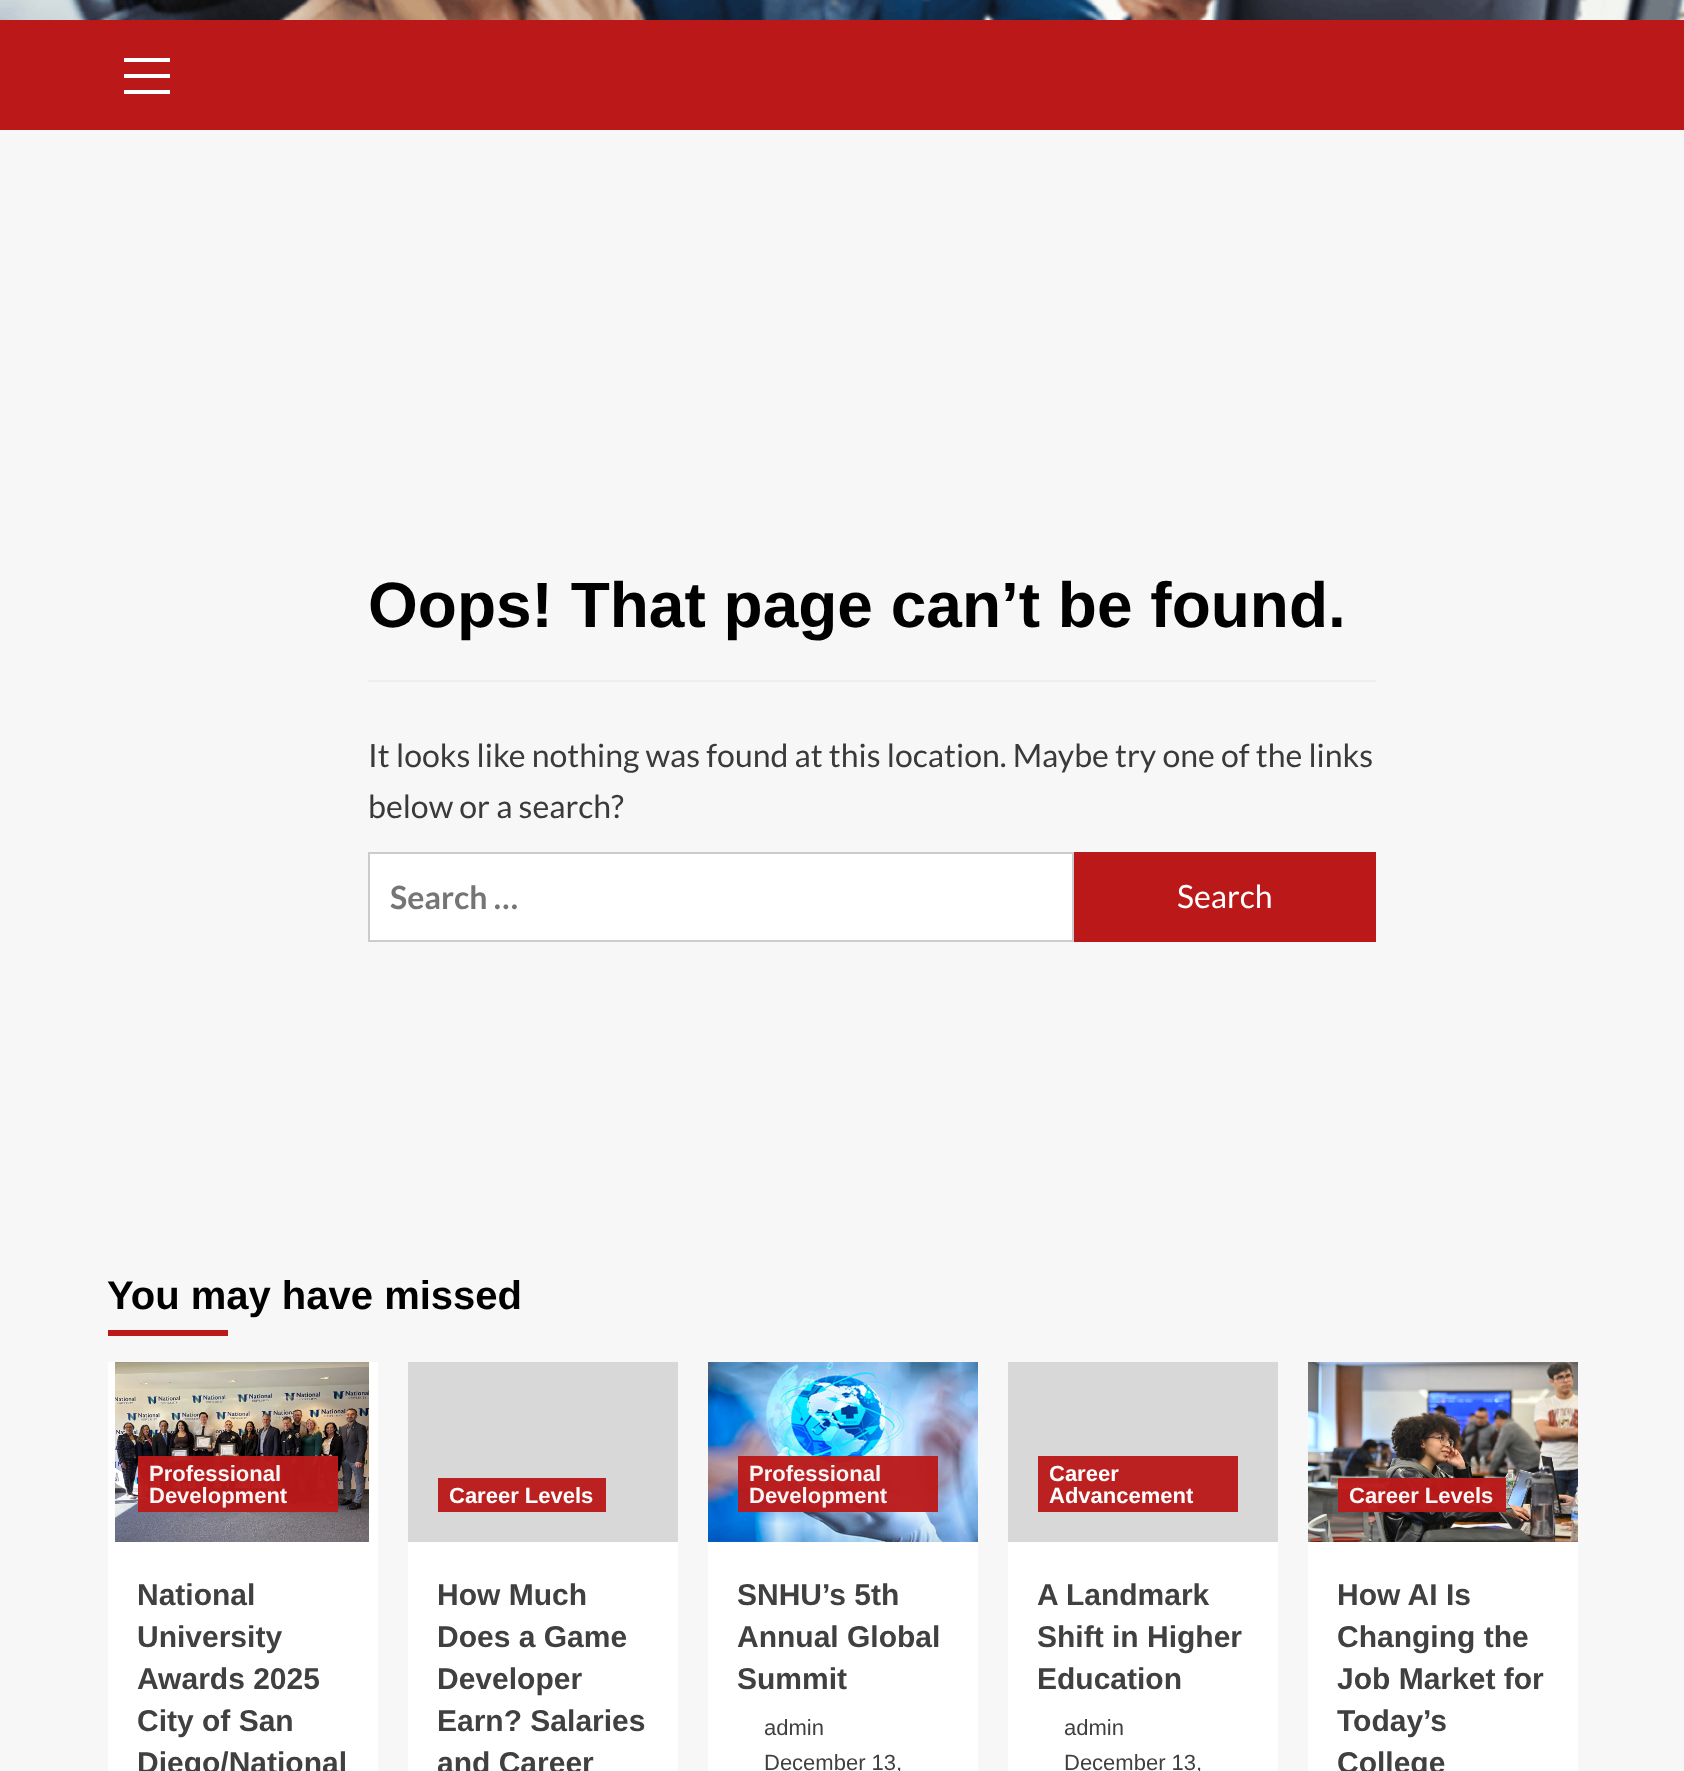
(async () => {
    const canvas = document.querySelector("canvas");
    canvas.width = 1684;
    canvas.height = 1771;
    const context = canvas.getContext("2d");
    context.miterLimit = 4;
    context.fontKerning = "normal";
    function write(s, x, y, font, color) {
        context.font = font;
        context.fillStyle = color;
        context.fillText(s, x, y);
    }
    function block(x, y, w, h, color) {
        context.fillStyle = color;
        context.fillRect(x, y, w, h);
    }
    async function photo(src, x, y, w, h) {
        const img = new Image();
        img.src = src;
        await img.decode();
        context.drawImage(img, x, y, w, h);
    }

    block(0, 0, 1684, 1771, "rgb(247, 247, 247)");
    await photo("media/1.png", 0, 0, 1684, 20);
    block(0, 20, 1684, 110, "rgb(187, 25, 25)");
    block(124, 74, 46, 4, "rgb(255, 255, 255)");
    block(124, 58, 46, 4, "rgb(255, 255, 255)");
    block(124, 90, 46, 4, "rgb(255, 255, 255)");
    block(368, 680, 1008, 2, "rgb(238, 238, 238)");
    write("Oops! That page can’t be found.", 368, 627, "bold 64px Liberation Sans", "rgb(0, 0, 0)");
    write("It looks like nothing was found at this location. Maybe try one of the links", 368, 767, "32px Lato", "rgb(58, 58, 58)");
    write("below or a search?", 368, 818, "32px Lato", "rgb(58, 58, 58)");
    context.fillStyle = "rgb(255, 255, 255)";
    context.beginPath();
    context.rect(369, 853, 704, 88);
    context.fill();
    context.strokeStyle = "rgb(204, 204, 204)";
    context.lineWidth = 2;
    context.stroke();
    write("Search …", 390, 909, "bold 32px Lato", "rgb(117, 117, 117)");
    block(1074, 852, 302, 90, "rgb(187, 25, 25)");
    write("Search", 1177, 908, "32px Lato", "rgb(255, 255, 255)");
    write("You may have missed", 107, 1309, "bold 40px Liberation Sans", "rgb(0, 0, 0)");
    block(108, 1330, 120, 6, "rgb(187, 25, 25)");
    block(108, 1542, 270, 229, "rgb(255, 255, 255)");
    await photo("media/2.png", 108, 1362, 270, 180);
    block(138, 1456, 200, 56, "rgba(187, 25, 25, 0.96)");
    write("Professional", 149, 1481, "bold 22px Liberation Sans", "rgb(252, 246, 246)");
    write("Development", 149, 1503, "bold 22px Liberation Sans", "rgb(252, 246, 246)");
    write("National", 137, 1605, "bold 30px Liberation Sans", "rgb(64, 64, 64)");
    write("University", 137, 1647, "bold 30px Liberation Sans", "rgb(64, 64, 64)");
    write("Awards 2025", 137, 1689, "bold 30px Liberation Sans", "rgb(64, 64, 64)");
    write("City of San", 137, 1731, "bold 30px Liberation Sans", "rgb(64, 64, 64)");
    write("Diego/National", 137, 1773, "bold 30px Liberation Sans", "rgb(64, 64, 64)");
    block(408, 1542, 270, 229, "rgb(255, 255, 255)");
    block(408, 1362, 270, 180, "rgb(216, 216, 216)");
    block(438, 1478, 168, 34, "rgb(188, 33, 33)");
    write("Career Levels", 449, 1503, "bold 22px Liberation Sans", "rgb(255, 255, 255)");
    write("How Much", 437, 1605, "bold 30px Liberation Sans", "rgb(64, 64, 64)");
    write("Does a Game", 437, 1647, "bold 30px Liberation Sans", "rgb(64, 64, 64)");
    write("Developer", 437, 1689, "bold 30px Liberation Sans", "rgb(64, 64, 64)");
    write("Earn? Salaries", 437, 1731, "bold 30px Liberation Sans", "rgb(64, 64, 64)");
    write("and Career", 437, 1773, "bold 30px Liberation Sans", "rgb(64, 64, 64)");
    block(708, 1542, 270, 229, "rgb(255, 255, 255)");
    await photo("media/3.png", 708, 1362, 270, 180);
    block(738, 1456, 200, 56, "rgba(187, 25, 25, 0.96)");
    write("Professional", 749, 1481, "bold 22px Liberation Sans", "rgb(252, 246, 246)");
    write("Development", 749, 1503, "bold 22px Liberation Sans", "rgb(252, 246, 246)");
    write("SNHU’s 5th", 737, 1605, "bold 30px Liberation Sans", "rgb(64, 64, 64)");
    write("Annual Global", 737, 1647, "bold 30px Liberation Sans", "rgb(64, 64, 64)");
    write("Summit", 737, 1689, "bold 30px Liberation Sans", "rgb(64, 64, 64)");
    write("admin", 764, 1735, "22px Liberation Sans", "rgb(64, 64, 64)");
    write("December 13,", 764, 1770, "22px Liberation Sans", "rgb(64, 64, 64)");
    block(1008, 1542, 270, 229, "rgb(255, 255, 255)");
    block(1008, 1362, 270, 180, "rgb(216, 216, 216)");
    block(1038, 1456, 200, 56, "rgb(188, 33, 33)");
    write("Career", 1049, 1481, "bold 22px Liberation Sans", "rgb(255, 255, 255)");
    write("Advancement", 1049, 1503, "bold 22px Liberation Sans", "rgb(255, 255, 255)");
    write("A Landmark", 1037, 1605, "bold 30px Liberation Sans", "rgb(64, 64, 64)");
    write("Shift in Higher", 1037, 1647, "bold 30px Liberation Sans", "rgb(64, 64, 64)");
    write("Education", 1037, 1689, "bold 30px Liberation Sans", "rgb(64, 64, 64)");
    write("admin", 1064, 1735, "22px Liberation Sans", "rgb(64, 64, 64)");
    write("December 13,", 1064, 1770, "22px Liberation Sans", "rgb(64, 64, 64)");
    block(1308, 1542, 270, 229, "rgb(255, 255, 255)");
    await photo("media/4.png", 1308, 1362, 270, 180);
    block(1338, 1478, 168, 34, "rgba(187, 25, 25, 0.96)");
    write("Career Levels", 1349, 1503, "bold 22px Liberation Sans", "rgb(252, 246, 246)");
    write("How AI Is", 1337, 1605, "bold 30px Liberation Sans", "rgb(64, 64, 64)");
    write("Changing the", 1337, 1647, "bold 30px Liberation Sans", "rgb(64, 64, 64)");
    write("Job Market for", 1337, 1689, "bold 30px Liberation Sans", "rgb(64, 64, 64)");
    write("Today’s", 1337, 1731, "bold 30px Liberation Sans", "rgb(64, 64, 64)");
    write("College", 1337, 1773, "bold 30px Liberation Sans", "rgb(64, 64, 64)");
})();
